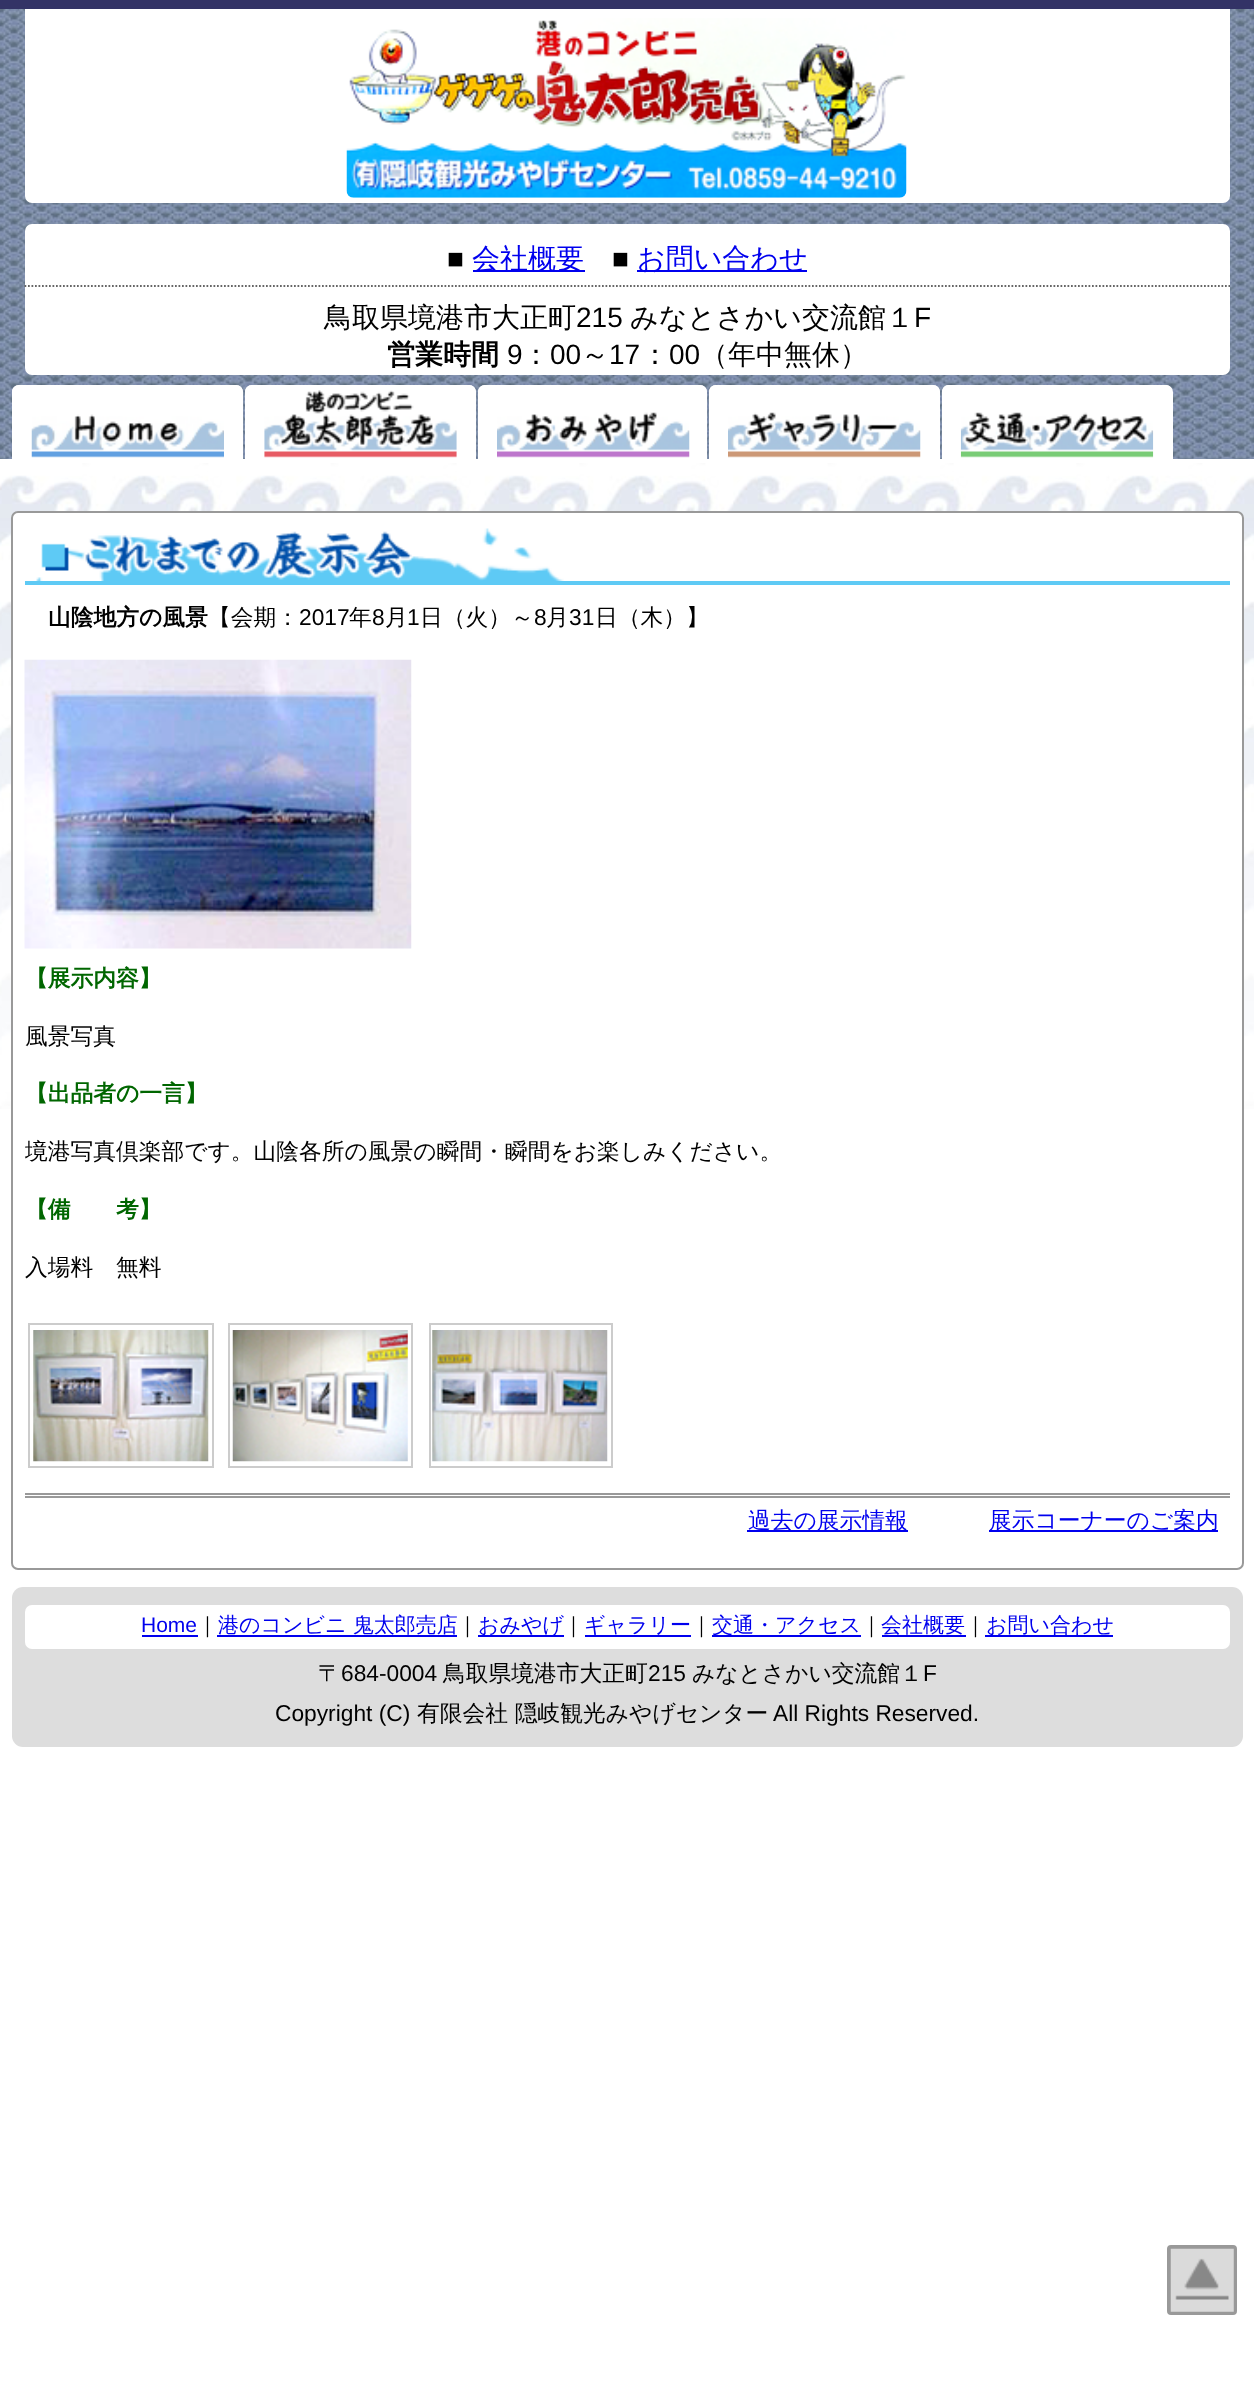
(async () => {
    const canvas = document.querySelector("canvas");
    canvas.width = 1254;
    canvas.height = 2385;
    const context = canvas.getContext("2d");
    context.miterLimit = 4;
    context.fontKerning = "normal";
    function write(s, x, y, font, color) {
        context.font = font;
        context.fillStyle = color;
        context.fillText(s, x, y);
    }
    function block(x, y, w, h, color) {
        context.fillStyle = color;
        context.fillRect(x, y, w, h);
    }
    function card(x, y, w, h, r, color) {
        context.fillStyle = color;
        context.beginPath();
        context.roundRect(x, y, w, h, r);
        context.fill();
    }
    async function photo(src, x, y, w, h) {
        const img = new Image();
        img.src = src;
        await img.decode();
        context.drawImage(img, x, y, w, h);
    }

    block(0, 0, 1254, 2385, "rgb(255, 255, 255)");
    await photo("media/1.png", 0, 463, 1254, 646);
    await photo("media/2.png", 0, 9, 1254, 450);
    block(0, 0, 1254, 9, "rgb(51, 51, 102)");
    context.fillStyle = "rgb(255, 255, 255)";
    context.beginPath();
    context.roundRect(25, 9, 1205, 194, [0, 0, 7, 7]);
    context.fill();
    await photo("media/3.png", 346, 18, 561, 180);
    card(25, 224, 1205, 151, 7, "rgb(255, 255, 255)");
    write("■", 447, 268, "28px Liberation Sans", "rgb(0, 0, 0)");
    block(473, 270, 112, 2, "rgb(0, 0, 238)");
    write("会社概要", 472, 268, "500 28px WenQuanYi Zen Hei", "rgb(0, 0, 238)");
    write("■", 612, 268, "28px Liberation Sans", "rgb(0, 0, 0)");
    block(637, 270, 170, 2, "rgb(0, 0, 238)");
    write("お問い合わせ", 637, 268, "500 28px WenQuanYi Zen Hei", "rgb(0, 0, 238)");
    context.beginPath();
    context.moveTo(24.5, 286);
    context.lineTo(1230, 286);
    context.strokeStyle = "rgb(102, 102, 102)";
    context.lineWidth = 1.8;
    context.setLineDash([1.75, 1.75]);
    context.stroke();
    write("鳥取県境港市大正町", 324, 327, "500 28px WenQuanYi Zen Hei", "rgb(0, 0, 0)");
    write("215", 576, 327, "28px Liberation Sans", "rgb(0, 0, 0)");
    write("みなとさかい交流館１", 630, 327, "500 28px WenQuanYi Zen Hei", "rgb(0, 0, 0)");
    write("F", 914, 327, "28px Liberation Sans", "rgb(0, 0, 0)");
    write("営業時間", 387, 364, "bold 28px WenQuanYi Zen Hei", "rgb(0, 0, 0)");
    write("9", 507, 364, "28px Liberation Sans", "rgb(0, 0, 0)");
    write("：", 522, 364, "500 28px WenQuanYi Zen Hei", "rgb(0, 0, 0)");
    write("00", 550, 364, "28px Liberation Sans", "rgb(0, 0, 0)");
    write("～", 581, 364, "500 28px WenQuanYi Zen Hei", "rgb(0, 0, 0)");
    write("17", 609, 364, "28px Liberation Sans", "rgb(0, 0, 0)");
    write("：", 641, 364, "500 28px WenQuanYi Zen Hei", "rgb(0, 0, 0)");
    write("00", 669, 364, "28px Liberation Sans", "rgb(0, 0, 0)");
    write("（年中無休）", 700, 364, "500 28px WenQuanYi Zen Hei", "rgb(0, 0, 0)");
    context.fillStyle = "rgb(255, 255, 255)";
    context.beginPath();
    context.roundRect(12, 385, 231, 74, [7, 7, 0, 0]);
    context.fill();
    context.beginPath();
    context.moveTo(19, 385);
    context.lineTo(236, 385);
    context.bezierCurveTo(240, 385, 243, 388, 243, 392);
    context.lineTo(243, 458);
    context.lineTo(12, 458);
    context.lineTo(12, 392);
    context.bezierCurveTo(12, 388, 15, 385, 19, 385);
    context.closePath();
    context.moveTo(19, 388);
    context.lineTo(236, 388);
    context.bezierCurveTo(238, 388, 240, 390, 240, 392);
    context.lineTo(240, 458);
    context.lineTo(16, 458);
    context.lineTo(16, 392);
    context.bezierCurveTo(16, 390, 17, 388, 19, 388);
    context.closePath();
    context.fill("evenodd");
    await photo("media/4.png", 31, 414, 193, 44);
    context.beginPath();
    context.roundRect(245, 385, 231, 74, [7, 7, 0, 0]);
    context.fill();
    context.beginPath();
    context.moveTo(252, 385);
    context.lineTo(469, 385);
    context.bezierCurveTo(473, 385, 476, 388, 476, 392);
    context.lineTo(476, 458);
    context.lineTo(245, 458);
    context.lineTo(245, 392);
    context.bezierCurveTo(245, 388, 248, 385, 252, 385);
    context.closePath();
    context.moveTo(252, 388);
    context.lineTo(469, 388);
    context.bezierCurveTo(471, 388, 472, 390, 472, 392);
    context.lineTo(472, 458);
    context.lineTo(248, 458);
    context.lineTo(248, 392);
    context.bezierCurveTo(248, 390, 250, 388, 252, 388);
    context.closePath();
    context.fill("evenodd");
    await photo("media/5.png", 264, 390, 193, 68);
    context.beginPath();
    context.roundRect(478, 385, 229, 74, [7, 7, 0, 0]);
    context.fill();
    context.beginPath();
    context.moveTo(485, 385);
    context.lineTo(700, 385);
    context.bezierCurveTo(704, 385, 707, 388, 707, 392);
    context.lineTo(707, 458);
    context.lineTo(478, 458);
    context.lineTo(478, 392);
    context.bezierCurveTo(478, 388, 481, 385, 485, 385);
    context.closePath();
    context.moveTo(485, 388);
    context.lineTo(700, 388);
    context.bezierCurveTo(702, 388, 704, 390, 704, 392);
    context.lineTo(704, 458);
    context.lineTo(481, 458);
    context.lineTo(481, 392);
    context.bezierCurveTo(481, 390, 483, 388, 485, 388);
    context.closePath();
    context.fill("evenodd");
    await photo("media/6.png", 497, 412, 193, 46);
    context.beginPath();
    context.roundRect(709, 385, 231, 74, [7, 7, 0, 0]);
    context.fill();
    context.beginPath();
    context.moveTo(716, 385);
    context.lineTo(933, 385);
    context.bezierCurveTo(937, 385, 940, 388, 940, 392);
    context.lineTo(940, 458);
    context.lineTo(709, 458);
    context.lineTo(709, 392);
    context.bezierCurveTo(709, 388, 712, 385, 716, 385);
    context.closePath();
    context.moveTo(716, 388);
    context.lineTo(933, 388);
    context.bezierCurveTo(935, 388, 936, 390, 936, 392);
    context.lineTo(936, 458);
    context.lineTo(712, 458);
    context.lineTo(712, 392);
    context.bezierCurveTo(712, 390, 714, 388, 716, 388);
    context.closePath();
    context.fill("evenodd");
    await photo("media/7.png", 728, 412, 193, 46);
    context.beginPath();
    context.roundRect(942, 385, 231, 74, [7, 7, 0, 0]);
    context.fill();
    context.beginPath();
    context.moveTo(948, 385);
    context.lineTo(1166, 385);
    context.bezierCurveTo(1169, 385, 1172, 388, 1172, 392);
    context.lineTo(1172, 458);
    context.lineTo(942, 458);
    context.lineTo(942, 392);
    context.bezierCurveTo(942, 388, 945, 385, 948, 385);
    context.closePath();
    context.moveTo(948, 388);
    context.lineTo(1166, 388);
    context.bezierCurveTo(1167, 388, 1169, 390, 1169, 392);
    context.lineTo(1169, 458);
    context.lineTo(945, 458);
    context.lineTo(945, 392);
    context.bezierCurveTo(945, 390, 947, 388, 948, 388);
    context.closePath();
    context.fill("evenodd");
    await photo("media/8.png", 960, 412, 194, 46);
    context.beginPath();
    context.roundRect(12, 512, 1231, 1057, 6);
    context.fill();
    context.strokeStyle = "rgb(153, 153, 153)";
    context.lineWidth = 2;
    context.setLineDash([]);
    context.stroke();
    block(25, 581, 1205, 4, "rgb(94, 202, 245)");
    await photo("media/9.png", 36, 528, 528, 53);
    write("山陰地方の風景", 48, 625, "bold 22.75px WenQuanYi Zen Hei", "rgb(0, 0, 0)");
    write("【会期：", 208, 625, "500 22.75px WenQuanYi Zen Hei", "rgb(0, 0, 0)");
    write("2017", 299, 625, "22.75px Liberation Sans", "rgb(0, 0, 0)");
    write("年", 349, 625, "500 22.75px WenQuanYi Zen Hei", "rgb(0, 0, 0)");
    write("8", 372, 625, "22.75px Liberation Sans", "rgb(0, 0, 0)");
    write("月", 385, 625, "500 22.75px WenQuanYi Zen Hei", "rgb(0, 0, 0)");
    write("1", 407, 625, "22.75px Liberation Sans", "rgb(0, 0, 0)");
    write("日（火）～", 420, 625, "500 22.75px WenQuanYi Zen Hei", "rgb(0, 0, 0)");
    write("8", 534, 625, "22.75px Liberation Sans", "rgb(0, 0, 0)");
    write("月", 546, 625, "500 22.75px WenQuanYi Zen Hei", "rgb(0, 0, 0)");
    write("31", 569, 625, "22.75px Liberation Sans", "rgb(0, 0, 0)");
    write("日（木）】", 595, 625, "500 22.75px WenQuanYi Zen Hei", "rgb(0, 0, 0)");
    await photo("media/10.png", 24, 659, 388, 290);
    write("【展示内容】", 25, 986, "bold 22.75px WenQuanYi Zen Hei", "rgb(0, 102, 0)");
    write("風景写真", 25, 1044, "500 22.75px WenQuanYi Zen Hei", "rgb(0, 0, 0)");
    write("【出品者の一言】", 25, 1101, "bold 22.75px WenQuanYi Zen Hei", "rgb(0, 102, 0)");
    write("境港写真倶楽部です。山陰各所の風景の瞬間・瞬間をお楽しみください。", 25, 1159, "500 22.75px WenQuanYi Zen Hei", "rgb(0, 0, 0)");
    write("【備　　考】", 25, 1217, "bold 22.75px WenQuanYi Zen Hei", "rgb(0, 102, 0)");
    write("入場料　無料", 25, 1275, "500 22.75px WenQuanYi Zen Hei", "rgb(0, 0, 0)");
    context.strokeStyle = "rgb(204, 204, 204)";
    context.strokeRect(29, 1324, 184, 143);
    await photo("media/11.png", 33, 1330, 176, 132);
    context.strokeRect(229, 1324, 183, 143);
    await photo("media/12.png", 232, 1330, 176, 132);
    context.strokeRect(430, 1324, 182, 143);
    await photo("media/13.png", 432, 1330, 176, 132);
    block(25, 1493, 1205, 2, "rgb(153, 153, 153)");
    block(25, 1496, 1205, 2, "rgb(153, 153, 153)");
    block(747, 1530, 161, 2, "rgb(0, 0, 238)");
    write("過去の展示情報", 748, 1528, "500 22.75px WenQuanYi Zen Hei", "rgb(0, 0, 238)");
    block(989, 1530, 229, 2, "rgb(0, 0, 238)");
    write("展示コーナーのご案内", 989, 1528, "500 22.75px WenQuanYi Zen Hei", "rgb(0, 0, 238)");
    card(12, 1587, 1231, 160, 11, "rgb(221, 221, 221)");
    card(25, 1605, 1205, 44, 7, "rgb(255, 255, 255)");
    write("Home", 141, 1632, "21px Liberation Sans", "rgb(0, 0, 238)");
    block(142, 1635, 56, 2, "rgb(0, 0, 238)");
    write("｜", 197, 1632, "500 21px WenQuanYi Zen Hei", "rgb(0, 0, 0)");
    write("港のコンビニ 鬼太郎売店", 218, 1632, "500 21px WenQuanYi Zen Hei", "rgb(0, 0, 238)");
    block(217, 1635, 240, 2, "rgb(0, 0, 238)");
    write("｜", 457, 1632, "500 21px WenQuanYi Zen Hei", "rgb(0, 0, 0)");
    block(478, 1635, 86, 2, "rgb(0, 0, 238)");
    write("おみやげ", 478, 1632, "500 21px WenQuanYi Zen Hei", "rgb(0, 0, 238)");
    write("｜", 563, 1632, "500 21px WenQuanYi Zen Hei", "rgb(0, 0, 0)");
    write("ギャラリー", 584, 1632, "500 21px WenQuanYi Zen Hei", "rgb(0, 0, 238)");
    block(585, 1635, 106, 2, "rgb(0, 0, 238)");
    write("｜", 691, 1632, "500 21px WenQuanYi Zen Hei", "rgb(0, 0, 0)");
    block(712, 1635, 149, 2, "rgb(0, 0, 238)");
    write("交通・アクセス", 712, 1632, "500 21px WenQuanYi Zen Hei", "rgb(0, 0, 238)");
    write("｜", 861, 1632, "500 21px WenQuanYi Zen Hei", "rgb(0, 0, 0)");
    write("会社概要", 881, 1632, "500 21px WenQuanYi Zen Hei", "rgb(0, 0, 238)");
    block(882, 1635, 84, 2, "rgb(0, 0, 238)");
    write("｜", 965, 1632, "500 21px WenQuanYi Zen Hei", "rgb(0, 0, 0)");
    block(985, 1635, 128, 2, "rgb(0, 0, 238)");
    write("お問い合わせ", 986, 1632, "500 21px WenQuanYi Zen Hei", "rgb(0, 0, 238)");
    write("〒", 318, 1681, "500 22.75px WenQuanYi Zen Hei", "rgb(0, 0, 0)");
    write("684-0004", 341, 1681, "22.75px Liberation Sans", "rgb(0, 0, 0)");
    write("鳥取県境港市大正町", 443, 1681, "500 22.75px WenQuanYi Zen Hei", "rgb(0, 0, 0)");
    write("215", 648, 1681, "22.75px Liberation Sans", "rgb(0, 0, 0)");
    write("みなとさかい交流館１", 692, 1681, "500 22.75px WenQuanYi Zen Hei", "rgb(0, 0, 0)");
    write("F", 923, 1681, "22.75px Liberation Sans", "rgb(0, 0, 0)");
    write("Copyright (C)", 275, 1721, "22.75px Liberation Sans", "rgb(0, 0, 0)");
    write("有限会社 隠岐観光みやげセンター", 417, 1721, "500 22.75px WenQuanYi Zen Hei", "rgb(0, 0, 0)");
    write("All Rights Reserved.", 773, 1721, "22.75px Liberation Sans", "rgb(0, 0, 0)");
    context.beginPath();
    context.roundRect(1169, 2247, 66, 66, 2);
    context.strokeStyle = "rgb(153, 153, 153)";
    context.lineWidth = 4;
    context.stroke();
    await photo("media/14.png", 1170, 2248, 64, 64);
})();
